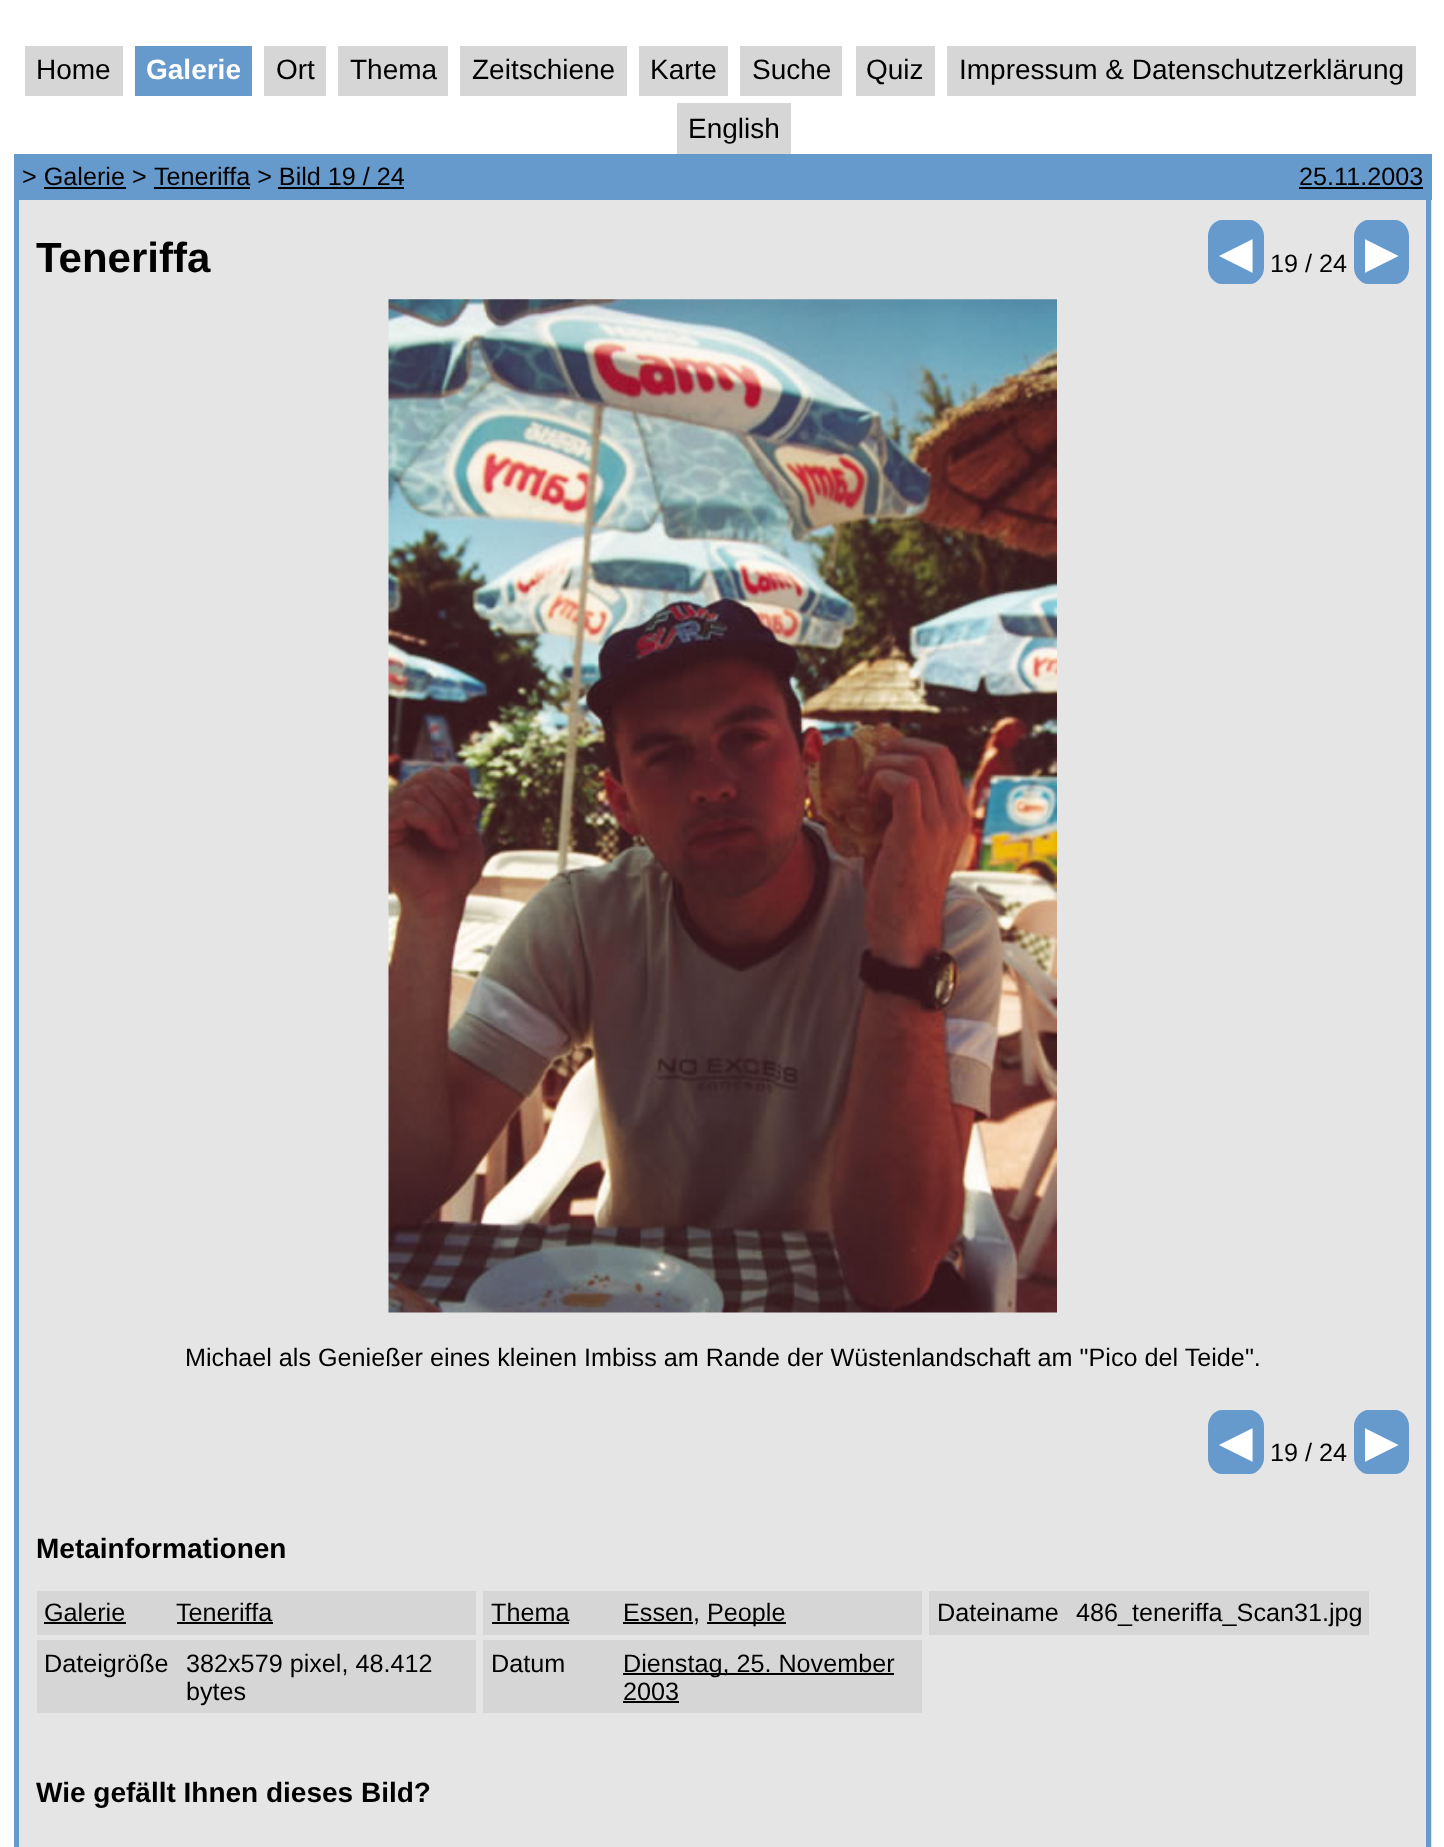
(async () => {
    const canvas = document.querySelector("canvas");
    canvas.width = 1444;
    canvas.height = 1847;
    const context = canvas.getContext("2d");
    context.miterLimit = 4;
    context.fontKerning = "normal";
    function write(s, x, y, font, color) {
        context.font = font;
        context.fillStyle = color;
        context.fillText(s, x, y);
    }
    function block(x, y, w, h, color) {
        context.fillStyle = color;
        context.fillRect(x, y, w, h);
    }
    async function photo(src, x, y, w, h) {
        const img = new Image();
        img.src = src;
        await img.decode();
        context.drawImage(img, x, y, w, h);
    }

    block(0, 0, 1444, 1847, "rgb(255, 255, 255)");
    block(25, 46, 98, 50, "rgb(214, 214, 214)");
    write("Home", 36, 79, "28px Liberation Sans", "rgb(0, 0, 0)");
    block(135, 46, 117, 50, "rgb(102, 153, 204)");
    write("Galerie", 146, 79, "bold 28px Liberation Sans", "rgb(255, 255, 255)");
    block(264, 46, 62, 50, "rgb(214, 214, 214)");
    write("Ort", 276, 79, "28px Liberation Sans", "rgb(0, 0, 0)");
    block(338, 46, 110, 50, "rgb(214, 214, 214)");
    write("Thema", 350, 79, "28px Liberation Sans", "rgb(0, 0, 0)");
    block(460, 46, 167, 50, "rgb(214, 214, 214)");
    write("Zeitschiene", 472, 79, "28px Liberation Sans", "rgb(0, 0, 0)");
    block(639, 46, 89, 50, "rgb(214, 214, 214)");
    write("Karte", 650, 79, "28px Liberation Sans", "rgb(0, 0, 0)");
    block(740, 46, 102, 50, "rgb(214, 214, 214)");
    write("Suche", 752, 79, "28px Liberation Sans", "rgb(0, 0, 0)");
    block(856, 46, 79, 50, "rgb(214, 214, 214)");
    write("Quiz", 866, 79, "28px Liberation Sans", "rgb(0, 0, 0)");
    block(947, 46, 469, 50, "rgb(214, 214, 214)");
    write("Impressum & Datenschutzerklärung", 959, 79, "28px Liberation Sans", "rgb(0, 0, 0)");
    block(677, 103, 114, 51, "rgb(214, 214, 214)");
    write("English", 688, 138, "28px Liberation Sans", "rgb(0, 0, 0)");
    block(14, 154, 1418, 46, "rgb(102, 153, 204)");
    write("> Galerie >", 22, 185, "25.2px Liberation Sans", "rgb(0, 0, 0)");
    write("Teneriffa > Bild 19 / 24", 154, 185, "25.2px Liberation Sans", "rgb(0, 0, 0)");
    block(154, 187, 96, 2, "rgb(0, 0, 0)");
    block(44, 187, 82, 2, "rgb(0, 0, 0)");
    block(278, 187, 126, 2, "rgb(0, 0, 0)");
    write("25.11.2003", 1299, 185, "25.2px Liberation Sans", "rgb(0, 0, 0)");
    block(1299, 187, 124, 2, "rgb(0, 0, 0)");
    block(19, 200, 1413, 1647, "rgb(229, 229, 229)");
    block(1426, 200, 5, 1647, "rgb(102, 153, 204)");
    block(14, 200, 5, 1647, "rgb(102, 153, 204)");
    write("Teneriffa", 36, 272, "bold 42px Liberation Sans", "rgb(0, 0, 0)");
    context.fillStyle = "rgb(102, 153, 204)";
    context.beginPath();
    context.moveTo(1222, 220);
    context.lineTo(1250, 220);
    context.bezierCurveTo(1257, 220, 1264, 228, 1264, 236);
    context.lineTo(1264, 268);
    context.bezierCurveTo(1264, 276, 1257, 284, 1250, 284);
    context.lineTo(1222, 284);
    context.bezierCurveTo(1214, 284, 1208, 276, 1208, 268);
    context.lineTo(1208, 236);
    context.bezierCurveTo(1208, 228, 1214, 220, 1222, 220);
    context.closePath();
    context.fill();
    write("◄", 1208, 272, "56px Liberation Sans", "rgb(255, 255, 255)");
    write("19 / 24", 1270, 272, "25.2px Liberation Sans", "rgb(0, 0, 0)");
    context.fillStyle = "rgb(102, 153, 204)";
    context.beginPath();
    context.moveTo(1368, 220);
    context.lineTo(1395, 220);
    context.bezierCurveTo(1403, 220, 1409, 228, 1409, 236);
    context.lineTo(1409, 268);
    context.bezierCurveTo(1409, 276, 1403, 284, 1395, 284);
    context.lineTo(1368, 284);
    context.bezierCurveTo(1361, 284, 1354, 276, 1354, 268);
    context.lineTo(1354, 236);
    context.bezierCurveTo(1354, 228, 1361, 220, 1368, 220);
    context.closePath();
    context.fill();
    write("►", 1354, 272, "56px Liberation Sans", "rgb(255, 255, 255)");
    await photo("media/1.png", 388, 299, 669, 1014);
    write("Michael als Genießer eines kleinen Imbiss am Rande der Wüstenlandschaft am \"Pico del Teide\".", 185, 1366, "25.2px Liberation Sans", "rgb(0, 0, 0)");
    context.fillStyle = "rgb(102, 153, 204)";
    context.beginPath();
    context.moveTo(1222, 1410);
    context.lineTo(1250, 1410);
    context.bezierCurveTo(1257, 1410, 1264, 1418, 1264, 1426);
    context.lineTo(1264, 1458);
    context.bezierCurveTo(1264, 1466, 1257, 1474, 1250, 1474);
    context.lineTo(1222, 1474);
    context.bezierCurveTo(1214, 1474, 1208, 1466, 1208, 1458);
    context.lineTo(1208, 1426);
    context.bezierCurveTo(1208, 1418, 1214, 1410, 1222, 1410);
    context.closePath();
    context.fill();
    write("◄", 1208, 1461, "56px Liberation Sans", "rgb(255, 255, 255)");
    write("19 / 24", 1270, 1461, "25.2px Liberation Sans", "rgb(0, 0, 0)");
    context.fillStyle = "rgb(102, 153, 204)";
    context.beginPath();
    context.moveTo(1368, 1410);
    context.lineTo(1395, 1410);
    context.bezierCurveTo(1403, 1410, 1409, 1418, 1409, 1426);
    context.lineTo(1409, 1458);
    context.bezierCurveTo(1409, 1466, 1403, 1474, 1395, 1474);
    context.lineTo(1368, 1474);
    context.bezierCurveTo(1361, 1474, 1354, 1466, 1354, 1458);
    context.lineTo(1354, 1426);
    context.bezierCurveTo(1354, 1418, 1361, 1410, 1368, 1410);
    context.closePath();
    context.fill();
    write("►", 1354, 1461, "56px Liberation Sans", "rgb(255, 255, 255)");
    write("Metainformationen", 36, 1558, "bold 28px Liberation Sans", "rgb(0, 0, 0)");
    block(37, 1591, 439, 44, "rgb(214, 214, 214)");
    write("Galerie", 44, 1621, "25.2px Liberation Sans", "rgb(0, 0, 0)");
    block(44, 1622, 82, 2, "rgb(0, 0, 0)");
    write("Teneriffa", 176, 1621, "25.2px Liberation Sans", "rgb(0, 0, 0)");
    block(177, 1622, 96, 2, "rgb(0, 0, 0)");
    block(483, 1591, 439, 44, "rgb(214, 214, 214)");
    write("Thema", 491, 1621, "25.2px Liberation Sans", "rgb(0, 0, 0)");
    block(492, 1622, 77, 2, "rgb(0, 0, 0)");
    block(623, 1622, 70, 2, "rgb(0, 0, 0)");
    write("Essen,", 623, 1621, "25.2px Liberation Sans", "rgb(0, 0, 0)");
    block(707, 1622, 79, 2, "rgb(0, 0, 0)");
    write("People", 707, 1621, "25.2px Liberation Sans", "rgb(0, 0, 0)");
    block(929, 1591, 440, 44, "rgb(214, 214, 214)");
    write("Dateiname", 937, 1621, "25.2px Liberation Sans", "rgb(0, 0, 0)");
    write("486_teneriffa_Scan31.jpg", 1076, 1621, "25.2px Liberation Sans", "rgb(0, 0, 0)");
    block(37, 1640, 439, 73, "rgb(214, 214, 214)");
    write("Dateigröße", 44, 1672, "25.2px Liberation Sans", "rgb(0, 0, 0)");
    write("382x579 pixel, 48.412", 186, 1672, "25.2px Liberation Sans", "rgb(0, 0, 0)");
    write("bytes", 186, 1700, "25.2px Liberation Sans", "rgb(0, 0, 0)");
    block(483, 1640, 439, 73, "rgb(214, 214, 214)");
    write("Datum", 491, 1672, "25.2px Liberation Sans", "rgb(0, 0, 0)");
    block(623, 1673, 271, 2, "rgb(0, 0, 0)");
    write("Dienstag, 25. November", 623, 1672, "25.2px Liberation Sans", "rgb(0, 0, 0)");
    write("2003", 623, 1700, "25.2px Liberation Sans", "rgb(0, 0, 0)");
    block(623, 1701, 56, 2, "rgb(0, 0, 0)");
    write("Wie gefällt Ihnen dieses Bild?", 36, 1802, "bold 28px Liberation Sans", "rgb(0, 0, 0)");
})();
